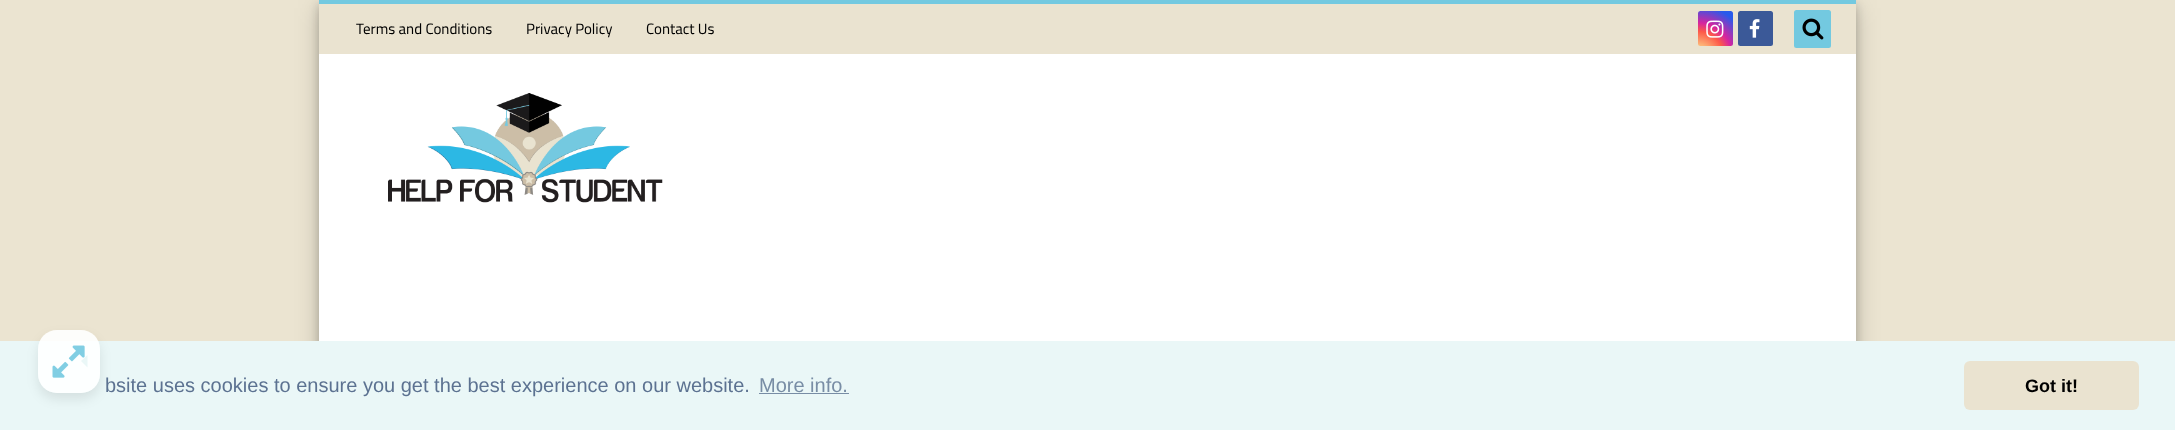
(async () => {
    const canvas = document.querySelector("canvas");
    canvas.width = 2175;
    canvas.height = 430;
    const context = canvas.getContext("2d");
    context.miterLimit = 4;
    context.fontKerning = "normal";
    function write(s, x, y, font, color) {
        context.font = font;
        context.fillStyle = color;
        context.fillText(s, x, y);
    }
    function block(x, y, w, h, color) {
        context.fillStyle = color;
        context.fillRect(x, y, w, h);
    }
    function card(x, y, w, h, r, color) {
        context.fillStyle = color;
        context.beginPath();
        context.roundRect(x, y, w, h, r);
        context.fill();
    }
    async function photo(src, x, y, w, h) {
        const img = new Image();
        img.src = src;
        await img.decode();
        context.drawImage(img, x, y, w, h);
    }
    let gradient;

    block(0, 0, 2175, 430, "rgb(235, 228, 209)");
    context.fillStyle = "rgba(0, 0, 0, 0.19)";
    context.filter = "blur(12.5px)";
    context.beginPath();
    context.rect(319, 8, 1537, 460);
    context.fill();
    context.filter = "none";
    context.fillStyle = "rgba(0, 0, 0, 0.2)";
    context.filter = "blur(5px)";
    context.beginPath();
    context.rect(319, 5, 1537, 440);
    context.fill();
    context.filter = "none";
    block(319, 54, 1537, 287, "rgb(255, 255, 255)");
    block(319, 0, 1537, 4, "rgb(115, 201, 224)");
    block(319, 4, 1537, 50, "rgb(234, 227, 208)");
    write("Terms and Conditions", 356, 34, "15px Cairo", "rgb(0, 0, 0)");
    write("Privacy Policy", 526, 34, "15px Cairo", "rgb(0, 0, 0)");
    write("Contact Us", 646, 34, "15px Cairo", "rgb(0, 0, 0)");
    gradient = context.createRadialGradient(1698, 57, 0, 1698, 57, 57);
    gradient.addColorStop(0, "rgb(253, 244, 151)");
    gradient.addColorStop(0.05, "rgb(253, 244, 151)");
    gradient.addColorStop(0.45, "rgb(253, 89, 73)");
    gradient.addColorStop(0.6, "rgb(214, 36, 159)");
    gradient.addColorStop(0.9, "rgb(40, 90, 235)");
    context.fillStyle = gradient;
    context.beginPath();
    context.roundRect(1698, 11, 35, 35, 2.5);
    context.fill();
    await photo("media/1.png", 1706, 20, 18, 18);
    card(1738, 11, 35, 35, 2.5, "rgb(59, 89, 152)");
    await photo("media/2.png", 1749, 19, 11, 19);
    card(1794, 10, 37, 38, 2.5, "rgb(115, 201, 224)");
    await photo("media/3.png", 1802, 18, 22, 22);
    await photo("media/4.png", 388, 93, 275, 110);
    block(0, 341, 2175, 89, "rgb(234, 247, 247)");
    context.save();
    context.beginPath();
    context.moveTo(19, 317);
    context.lineTo(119, 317);
    context.lineTo(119, 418);
    context.lineTo(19, 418);
    context.closePath();
    context.moveTo(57, 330);
    context.lineTo(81, 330);
    context.bezierCurveTo(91.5, 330, 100, 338.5, 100, 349);
    context.lineTo(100, 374);
    context.bezierCurveTo(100, 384.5, 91.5, 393, 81, 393);
    context.lineTo(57, 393);
    context.bezierCurveTo(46.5, 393, 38, 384.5, 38, 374);
    context.lineTo(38, 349);
    context.bezierCurveTo(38, 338.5, 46.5, 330, 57, 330);
    context.closePath();
    context.clip("evenodd");
    context.fillStyle = "rgba(0, 0, 0, 0.09)";
    context.filter = "blur(6px)";
    context.beginPath();
    context.roundRect(38, 336, 62, 63, 19);
    context.fill();
    context.filter = "none";
    context.restore();
    card(38, 330, 62, 63, 19, "rgba(255, 255, 255, 0.9)");
    await photo("media/5.png", 52, 345, 33, 33);
    context.fillStyle = "rgb(234, 247, 247)";
    context.beginPath();
    context.moveTo(87.5, 355);
    context.lineTo(87.5, 367.5);
    context.lineTo(81, 361);
    context.closePath();
    context.fill();
    write("bsite uses cookies to ensure you get the best experience on our website.", 105, 392, "20px Liberation Sans", "rgb(92, 114, 145)");
    write("More info.", 759, 392, "20px Liberation Sans", "rgb(120, 141, 165)");
    block(759, 393, 90, 1, "rgb(120, 141, 165)");
    card(1964, 361, 175, 49, 6, "rgb(234, 227, 208)");
    write("Got it!", 2025, 392, "bold 18px Liberation Sans", "rgb(0, 0, 0)");
})();
